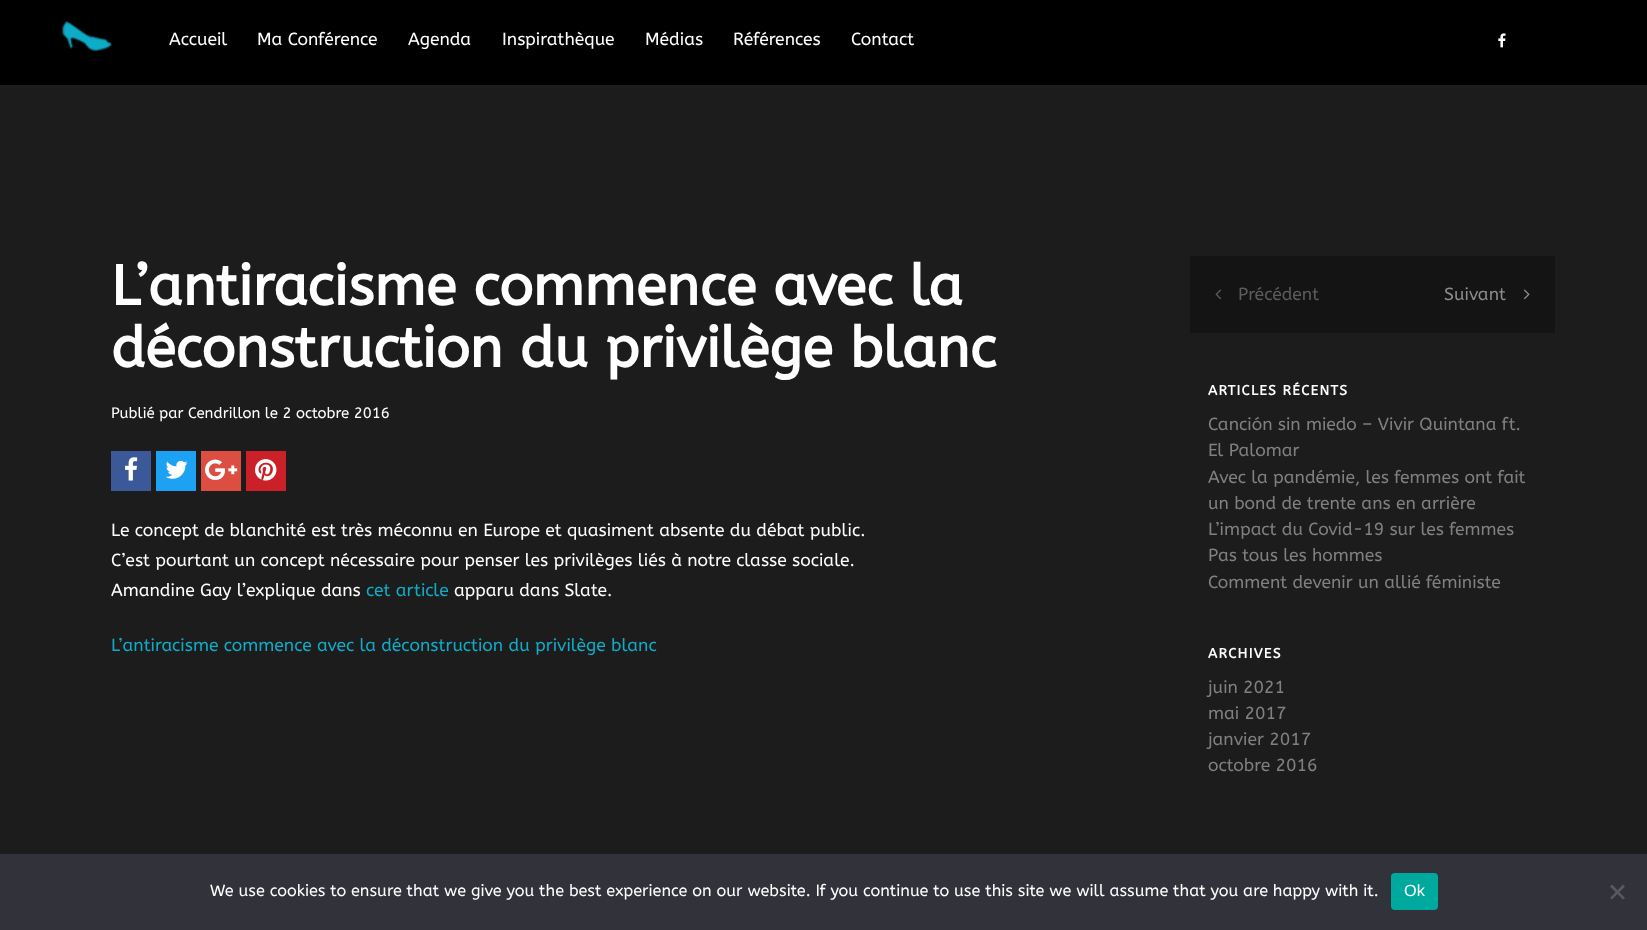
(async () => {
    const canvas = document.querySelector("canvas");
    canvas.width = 1647;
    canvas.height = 930;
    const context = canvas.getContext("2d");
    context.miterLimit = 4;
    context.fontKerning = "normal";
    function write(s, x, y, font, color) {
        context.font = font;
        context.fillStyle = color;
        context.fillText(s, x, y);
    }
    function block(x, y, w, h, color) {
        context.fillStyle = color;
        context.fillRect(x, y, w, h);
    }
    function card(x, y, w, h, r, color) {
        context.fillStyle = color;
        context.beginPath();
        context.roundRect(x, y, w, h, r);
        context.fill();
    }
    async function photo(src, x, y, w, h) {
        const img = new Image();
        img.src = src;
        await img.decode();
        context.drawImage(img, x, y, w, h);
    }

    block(0, 0, 1647, 930, "rgb(28, 28, 28)");
    block(0, 0, 1647, 85, "rgb(0, 0, 0)");
    await photo("media/1.png", 62, 21, 50, 31);
    write("Accueil", 169, 45, "17.5px ABeeZee", "rgb(255, 255, 255)");
    write("Ma Conférence", 257, 45, "17.5px ABeeZee", "rgb(255, 255, 255)");
    write("Agenda", 408, 45, "17.5px ABeeZee", "rgb(255, 255, 255)");
    write("Inspirathèque", 502, 45, "17.5px ABeeZee", "rgb(255, 255, 255)");
    write("Médias", 645, 45, "17.5px ABeeZee", "rgb(255, 255, 255)");
    write("Références", 733, 45, "17.5px ABeeZee", "rgb(255, 255, 255)");
    write("Contact", 851, 45, "17.5px ABeeZee", "rgb(255, 255, 255)");
    await photo("media/2.png", 1498, 33, 8, 15);
    write("L’antiracisme commence avec la", 111, 305, "bold 56.25px ABeeZee", "rgb(255, 255, 255)");
    write("déconstruction du privilège blanc", 111, 367, "bold 56.25px ABeeZee", "rgb(255, 255, 255)");
    write("Publié par Cendrillon le 2 octobre 2016", 111, 418, "15px ABeeZee", "rgb(255, 255, 255)");
    block(111, 451, 40, 40, "rgb(59, 89, 152)");
    await photo("media/3.png", 125, 457, 13, 24);
    block(156, 451, 40, 40, "rgb(29, 161, 242)");
    await photo("media/4.png", 165, 460, 23, 19);
    block(201, 451, 40, 40, "rgb(220, 78, 65)");
    await photo("media/5.png", 205, 459, 33, 22);
    block(246, 451, 40, 40, "rgb(203, 32, 39)");
    await photo("media/6.png", 255, 459, 22, 22);
    write("Le concept de blanchité est très méconnu en Europe et quasiment absente du débat public.", 111, 536, "17.5px ABeeZee", "rgb(255, 255, 255)");
    write("C’est pourtant un concept nécessaire pour penser les privilèges liés à notre classe sociale.", 111, 566, "17.5px ABeeZee", "rgb(255, 255, 255)");
    write("Amandine Gay l’explique dans", 111, 596, "17.5px ABeeZee", "rgb(255, 255, 255)");
    write("cet article", 366, 596, "17.5px ABeeZee", "rgb(15, 172, 200)");
    write("apparu dans Slate.", 454, 596, "17.5px ABeeZee", "rgb(255, 255, 255)");
    write("L’antiracisme commence avec la déconstruction du privilège blanc", 111, 651, "17.5px ABeeZee", "rgb(15, 172, 200)");
    block(1190, 256, 365, 77, "rgb(20, 20, 20)");
    await photo("media/7.png", 1215, 289, 6, 11);
    write("Précédent", 1238, 300, "17.5px ABeeZee", "rgb(92, 92, 92)");
    write("Suivant", 1444, 300, "17.5px ABeeZee", "rgb(140, 140, 140)");
    await photo("media/8.png", 1523, 289, 7, 11);
    context.letterSpacing = "1.25px";
    write("ARTICLES RÉCENTS", 1208, 395, "bold 13.75px ABeeZee", "rgb(255, 255, 255)");
    context.letterSpacing = "0px";
    write("Canción sin miedo – Vivir Quintana ft.", 1208, 430, "17.5px ABeeZee", "rgb(128, 128, 128)");
    write("El Palomar", 1208, 456, "17.5px ABeeZee", "rgb(128, 128, 128)");
    write("Avec la pandémie, les femmes ont fait", 1208, 483, "17.5px ABeeZee", "rgb(128, 128, 128)");
    write("un bond de trente ans en arrière", 1208, 509, "17.5px ABeeZee", "rgb(128, 128, 128)");
    write("L’impact du Covid-19 sur les femmes", 1208, 535, "17.5px ABeeZee", "rgb(128, 128, 128)");
    write("Pas tous les hommes", 1208, 561, "17.5px ABeeZee", "rgb(128, 128, 128)");
    write("Comment devenir un allié féministe", 1208, 588, "17.5px ABeeZee", "rgb(128, 128, 128)");
    context.letterSpacing = "1.25px";
    write("ARCHIVES", 1208, 658, "bold 13.75px ABeeZee", "rgb(255, 255, 255)");
    context.letterSpacing = "0px";
    write("juin 2021", 1208, 693, "17.5px ABeeZee", "rgb(128, 128, 128)");
    write("mai 2017", 1208, 719, "17.5px ABeeZee", "rgb(128, 128, 128)");
    write("janvier 2017", 1208, 745, "17.5px ABeeZee", "rgb(128, 128, 128)");
    write("octobre 2016", 1208, 771, "17.5px ABeeZee", "rgb(128, 128, 128)");
    block(0, 854, 1647, 76, "rgb(50, 50, 58)");
    write("We use cookies to ensure that we give you the best experience on our website. If you continue to use this site we will assume that you are happy with it.", 210, 896, "16.25px ABeeZee", "rgb(255, 255, 255)");
    card(1391, 873, 47, 37, 4, "rgb(0, 169, 157)");
    write("Ok", 1404, 896, "16.25px Liberation Sans", "rgb(255, 255, 255)");
    context.fillStyle = "rgb(89, 89, 93)";
    context.beginPath();
    context.moveTo(1623, 884.5);
    context.lineTo(1625, 886.5);
    context.lineTo(1612, 899.5);
    context.lineTo(1610, 898);
    context.closePath();
    context.fill();
    context.beginPath();
    context.moveTo(1610, 886.5);
    context.lineTo(1612, 884.5);
    context.lineTo(1625, 898);
    context.lineTo(1623, 899.5);
    context.closePath();
    context.fill();
})();
